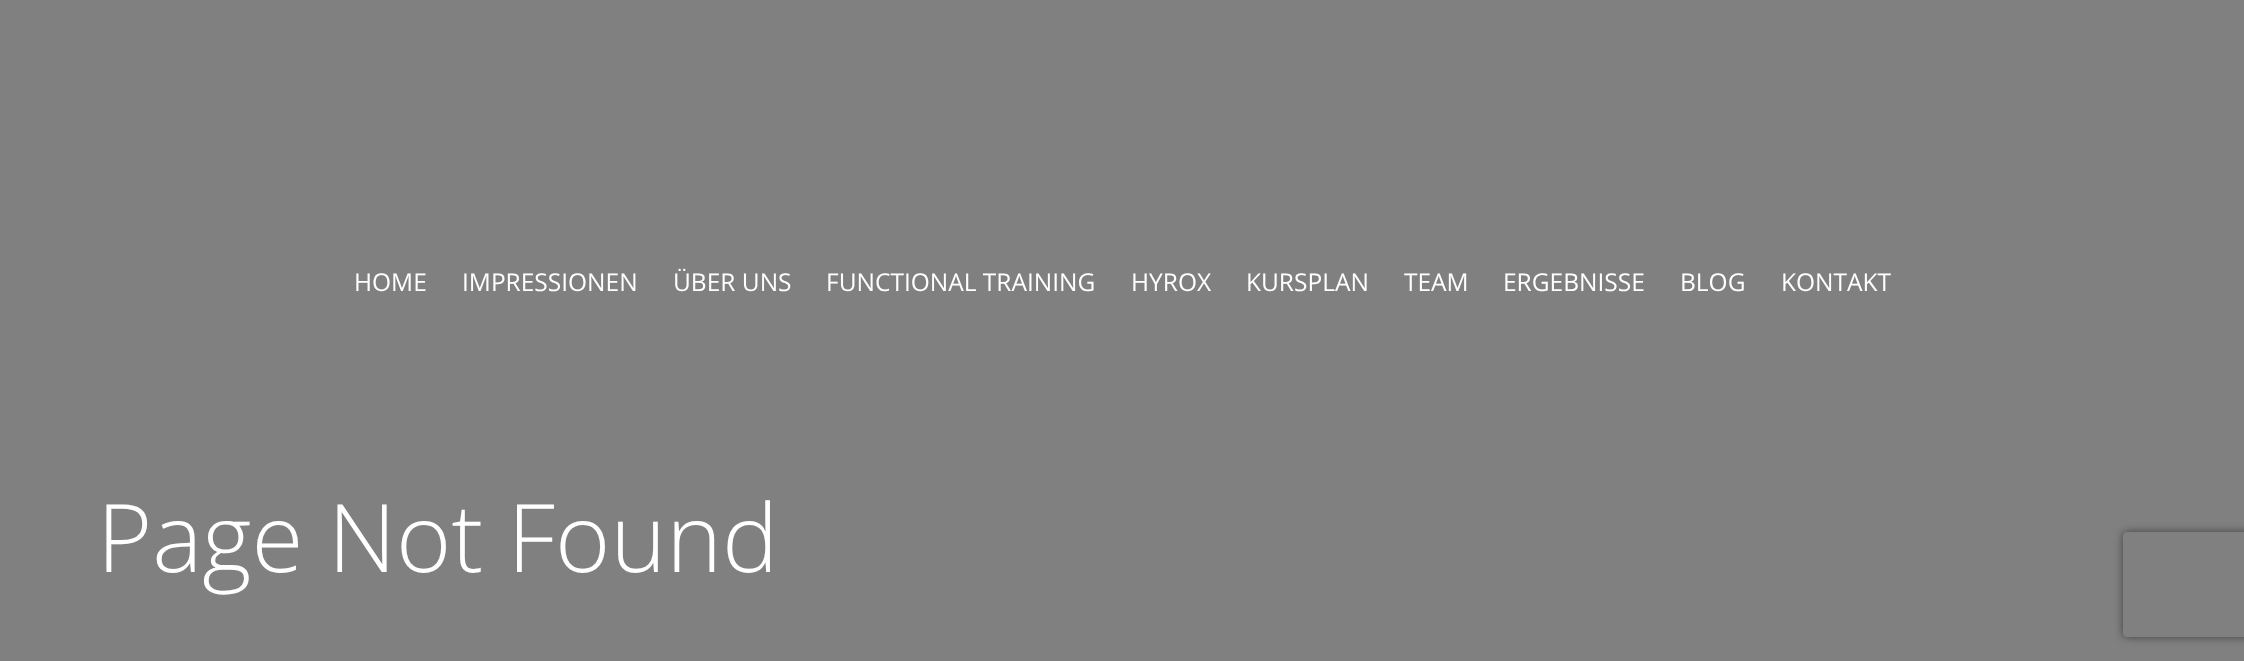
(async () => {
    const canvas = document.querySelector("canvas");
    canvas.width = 2244;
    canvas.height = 661;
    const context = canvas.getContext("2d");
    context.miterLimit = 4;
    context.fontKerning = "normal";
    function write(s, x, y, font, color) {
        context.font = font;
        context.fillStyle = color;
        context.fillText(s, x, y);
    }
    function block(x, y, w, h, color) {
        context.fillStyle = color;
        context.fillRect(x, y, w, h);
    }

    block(0, 0, 2244, 661, "rgb(128, 128, 128)");
    write("HOME", 354, 291, "24.5px Open Sans", "rgb(255, 255, 255)");
    write("IMPRESSIONEN", 462, 291, "24.5px Open Sans", "rgb(255, 255, 255)");
    write("ÜBER UNS", 673, 291, "24.5px Open Sans", "rgb(255, 255, 255)");
    write("FUNCTIONAL TRAINING", 826, 291, "24.5px Open Sans", "rgb(255, 255, 255)");
    write("HYROX", 1131, 291, "24.5px Open Sans", "rgb(255, 255, 255)");
    write("KURSPLAN", 1246, 291, "24.5px Open Sans", "rgb(255, 255, 255)");
    write("TEAM", 1404, 291, "24.5px Open Sans", "rgb(255, 255, 255)");
    write("ERGEBNISSE", 1503, 291, "24.5px Open Sans", "rgb(255, 255, 255)");
    write("BLOG", 1680, 291, "24.5px Open Sans", "rgb(255, 255, 255)");
    write("KONTAKT", 1781, 291, "24.5px Open Sans", "rgb(255, 255, 255)");
    write("Page Not Found", 97, 572, "300 94.5px Open Sans", "rgb(255, 255, 255)");
    context.save();
    context.beginPath();
    context.moveTo(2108, 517);
    context.lineTo(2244, 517);
    context.lineTo(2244, 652);
    context.lineTo(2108, 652);
    context.closePath();
    context.moveTo(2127, 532);
    context.lineTo(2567, 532);
    context.bezierCurveTo(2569, 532, 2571, 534, 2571, 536);
    context.lineTo(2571, 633);
    context.bezierCurveTo(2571, 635, 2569, 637, 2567, 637);
    context.lineTo(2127, 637);
    context.bezierCurveTo(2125, 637, 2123, 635, 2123, 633);
    context.lineTo(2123, 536);
    context.bezierCurveTo(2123, 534, 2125, 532, 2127, 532);
    context.closePath();
    context.clip("evenodd");
    context.fillStyle = "rgb(64, 64, 64)";
    context.filter = "blur(4.5px)";
    context.beginPath();
    context.roundRect(2123, 532, 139, 105, 4);
    context.fill();
    context.filter = "none";
    context.restore();
})();
